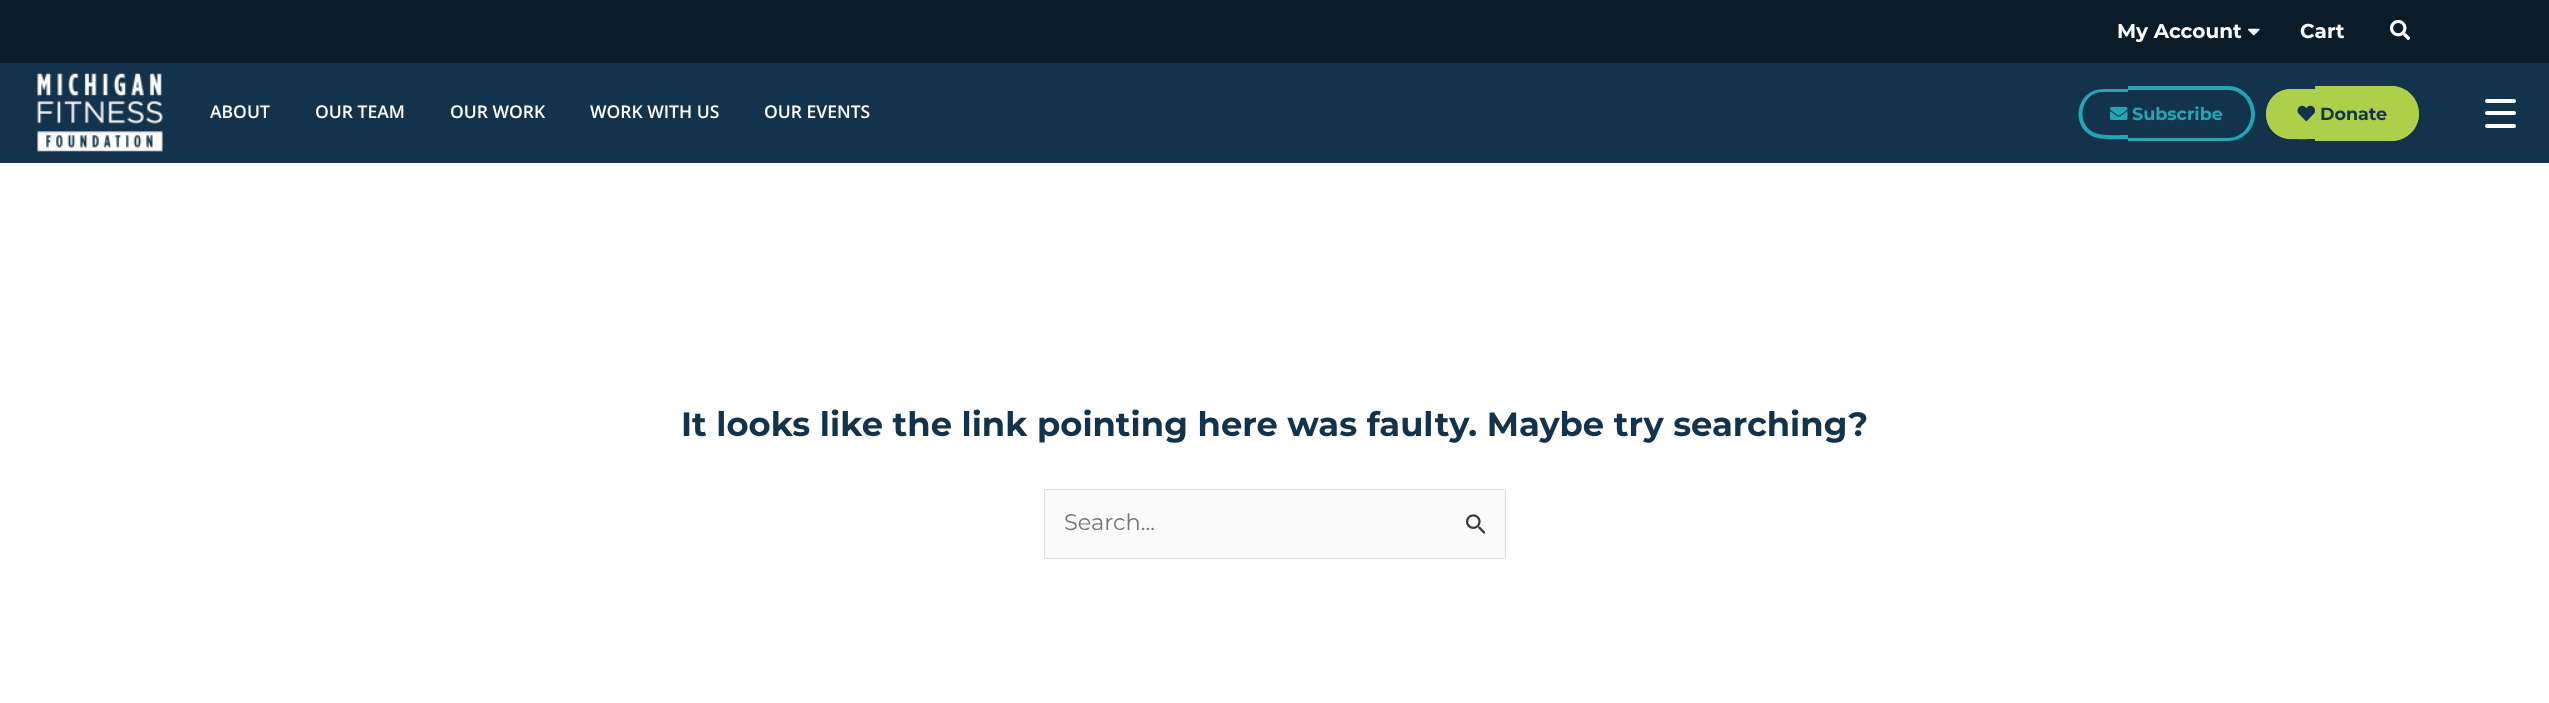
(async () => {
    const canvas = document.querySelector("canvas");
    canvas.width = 2549;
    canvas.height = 703;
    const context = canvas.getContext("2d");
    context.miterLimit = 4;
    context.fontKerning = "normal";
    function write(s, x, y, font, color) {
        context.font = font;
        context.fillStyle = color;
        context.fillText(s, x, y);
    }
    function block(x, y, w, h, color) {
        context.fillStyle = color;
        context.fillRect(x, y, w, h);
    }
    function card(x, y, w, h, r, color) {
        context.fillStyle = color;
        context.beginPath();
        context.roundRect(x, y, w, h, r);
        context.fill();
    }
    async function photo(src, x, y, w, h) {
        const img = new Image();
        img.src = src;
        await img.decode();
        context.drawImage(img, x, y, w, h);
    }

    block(0, 0, 2549, 703, "rgb(255, 255, 255)");
    block(0, 0, 2549, 63, "rgb(10, 28, 41)");
    write("My Account", 2117, 38, "bold 20px Montserrat", "rgb(255, 255, 255)");
    await photo("media/1.png", 2248, 28, 12, 8);
    write("Cart", 2300, 38, "bold 20px Montserrat", "rgb(255, 255, 255)");
    await photo("media/2.png", 2390, 19, 20, 22);
    block(0, 63, 2549, 100, "rgb(19, 51, 76)");
    await photo("media/3.png", 37, 73, 126, 79);
    write("ABOUT", 210, 118, "600 17.5px Open Sans", "rgb(255, 255, 255)");
    write("OUR TEAM", 315, 118, "600 17.5px Open Sans", "rgb(255, 255, 255)");
    write("OUR WORK", 450, 118, "600 17.5px Open Sans", "rgb(255, 255, 255)");
    write("WORK WITH US", 590, 118, "600 17.5px Open Sans", "rgb(255, 255, 255)");
    write("OUR EVENTS", 764, 118, "600 17.5px Open Sans", "rgb(255, 255, 255)");
    context.fillStyle = "rgb(34, 166, 179)";
    context.beginPath();
    context.moveTo(2103, 89);
    context.lineTo(2128, 89);
    context.lineTo(2128, 139);
    context.bezierCurveTo(2118, 139, 2102, 140, 2094, 137);
    context.bezierCurveTo(2069, 127, 2076, 89, 2103, 89);
    context.closePath();
    context.moveTo(2103, 92);
    context.lineTo(2128, 92);
    context.lineTo(2128, 135);
    context.bezierCurveTo(2119, 135, 2102, 136, 2095, 133);
    context.bezierCurveTo(2075, 125, 2080, 92, 2103, 92);
    context.closePath();
    context.fill("evenodd");
    context.beginPath();
    context.moveTo(2128, 86);
    context.lineTo(2228, 86);
    context.bezierCurveTo(2243, 86, 2255, 99, 2255, 114);
    context.bezierCurveTo(2255, 129, 2243, 141, 2228, 141);
    context.lineTo(2128, 141);
    context.closePath();
    context.moveTo(2128, 90);
    context.lineTo(2228, 90);
    context.bezierCurveTo(2241, 90, 2251, 101, 2251, 114);
    context.bezierCurveTo(2251, 127, 2241, 138, 2228, 138);
    context.lineTo(2128, 138);
    context.closePath();
    context.fill("evenodd");
    await photo("media/4.png", 2110, 106, 18, 14);
    write("Subscribe", 2132, 120, "bold 17.5px Montserrat", "rgb(34, 166, 179)");
    context.fillStyle = "rgb(172, 208, 73)";
    context.beginPath();
    context.roundRect(2266, 89, 49, 50, [24.5, 0, 0, 24.5]);
    context.fill();
    context.beginPath();
    context.moveTo(2291, 89);
    context.lineTo(2315, 89);
    context.lineTo(2315, 139);
    context.bezierCurveTo(2306, 139, 2289, 140, 2281, 137);
    context.bezierCurveTo(2257, 127, 2264, 89, 2291, 89);
    context.closePath();
    context.moveTo(2291, 92);
    context.lineTo(2315, 92);
    context.lineTo(2315, 135);
    context.bezierCurveTo(2307, 135, 2290, 136, 2283, 133);
    context.bezierCurveTo(2262, 125, 2268, 92, 2291, 92);
    context.closePath();
    context.fill("evenodd");
    context.beginPath();
    context.roundRect(2315, 86, 104, 55, [0, 27.5, 27.5, 0]);
    context.fill();
    context.beginPath();
    context.moveTo(2315, 86);
    context.lineTo(2391, 86);
    context.bezierCurveTo(2406, 86, 2419, 99, 2419, 114);
    context.bezierCurveTo(2419, 129, 2406, 141, 2391, 141);
    context.lineTo(2315, 141);
    context.closePath();
    context.moveTo(2315, 90);
    context.lineTo(2391, 90);
    context.bezierCurveTo(2404, 90, 2415, 101, 2415, 114);
    context.bezierCurveTo(2415, 127, 2404, 138, 2391, 138);
    context.lineTo(2315, 138);
    context.closePath();
    context.fill("evenodd");
    await photo("media/5.png", 2297, 105, 18, 17);
    write("Donate", 2320, 120, "bold 17.5px Montserrat", "rgb(19, 51, 76)");
    card(2485, 111, 31, 4, 2, "rgb(255, 255, 255)");
    card(2485, 99, 31, 4, 2, "rgb(255, 255, 255)");
    card(2485, 124, 31, 4, 2, "rgb(255, 255, 255)");
    write("It looks like the link pointing here was faulty. Maybe try searching?", 681, 436, "bold 33.75px Montserrat", "rgb(19, 51, 76)");
    context.fillStyle = "rgb(250, 250, 250)";
    context.beginPath();
    context.roundRect(1044.5, 489.5, 461, 69, 2);
    context.fill();
    context.strokeStyle = "rgb(221, 221, 221)";
    context.stroke();
    write("Search...", 1064, 530, "100 22.5px Montserrat", "rgb(117, 117, 117)");
    await photo("media/6.png", 1466, 514, 19, 20);
})();
